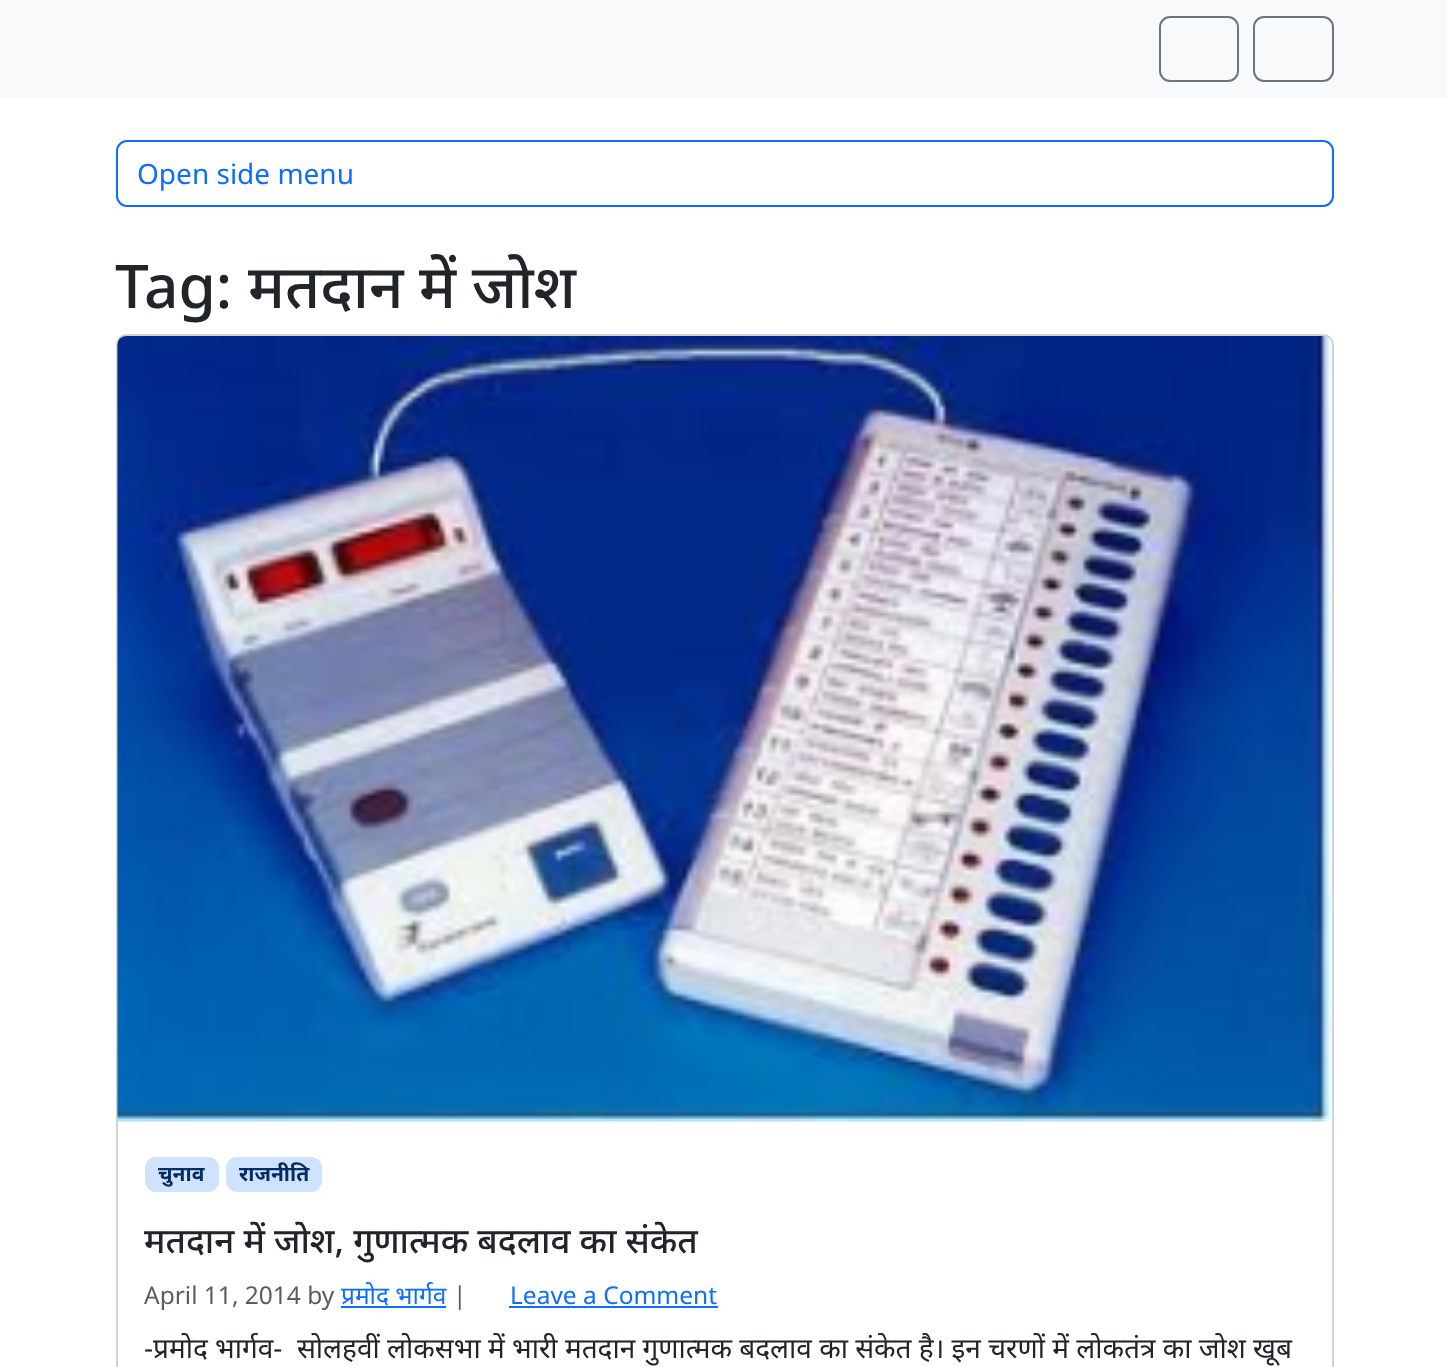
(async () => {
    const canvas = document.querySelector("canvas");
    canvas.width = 1447;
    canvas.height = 1367;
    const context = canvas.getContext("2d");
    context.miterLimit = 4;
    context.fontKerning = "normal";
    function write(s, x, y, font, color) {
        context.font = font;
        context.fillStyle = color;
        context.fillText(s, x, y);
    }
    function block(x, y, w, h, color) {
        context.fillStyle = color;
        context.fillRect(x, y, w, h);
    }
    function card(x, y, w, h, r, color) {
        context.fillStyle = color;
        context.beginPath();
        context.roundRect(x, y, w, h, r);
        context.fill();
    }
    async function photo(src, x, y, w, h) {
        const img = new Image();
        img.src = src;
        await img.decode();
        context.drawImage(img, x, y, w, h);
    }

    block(0, 0, 1447, 1367, "rgb(255, 255, 255)");
    block(0, 0, 1447, 98, "rgb(248, 249, 250)");
    context.beginPath();
    context.roundRect(1160, 17, 78, 64, 10);
    context.strokeStyle = "rgb(108, 117, 125)";
    context.lineWidth = 2;
    context.stroke();
    context.beginPath();
    context.roundRect(1254, 17, 79, 64, 10);
    context.stroke();
    context.beginPath();
    context.roundRect(117, 141, 1216, 65, 10);
    context.strokeStyle = "rgb(13, 110, 253)";
    context.stroke();
    write("Open side menu", 137, 184, "28px Noto Sans", "rgb(13, 110, 253)");
    write("Tag: मतदान में जोश", 115, 308, "500 60.25px Noto Sans", "rgb(33, 37, 41)");
    context.beginPath();
    context.roundRect(117, 335, 1216, 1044, 10);
    context.strokeStyle = "rgb(210, 210, 210)";
    context.stroke();
    await photo("media/1.png", 117, 336, 1215, 786);
    card(145, 1157, 74, 35, 11, "rgb(207, 226, 255)");
    write("चुनाव", 158, 1181, "bold 21px Noto Sans", "rgb(5, 44, 101)");
    card(226, 1157, 96, 35, 11, "rgb(207, 226, 255)");
    write("राजनीति", 239, 1181, "bold 21px Noto Sans", "rgb(5, 44, 101)");
    write("मतदान में जोश, गुणात्मक बदलाव का संकेत", 144, 1253, "500 35px Noto Sans", "rgb(33, 37, 41)");
    write("April 11, 2014 by", 144, 1304, "24.5px Noto Sans", "rgb(89, 92, 95)");
    write("प्रमोद भार्गव", 341, 1304, "24.5px Noto Sans", "rgb(13, 110, 253)");
    block(341, 1306, 105, 2, "rgb(13, 110, 253)");
    write("|", 453, 1304, "24.5px Noto Sans", "rgb(89, 92, 95)");
    write("Leave a Comment", 510, 1304, "24.5px Noto Sans", "rgb(13, 110, 253)");
    block(509, 1306, 209, 2, "rgb(13, 110, 253)");
    write("-प्रमोद भार्गव-  सोलहवीं लोकसभा में भारी मतदान गुणात्मक बदलाव का संकेत है। इन चरणों में लोकतंत्र का जोश खूब", 144, 1358, "28px Noto Sans", "rgb(33, 37, 41)");
})();
